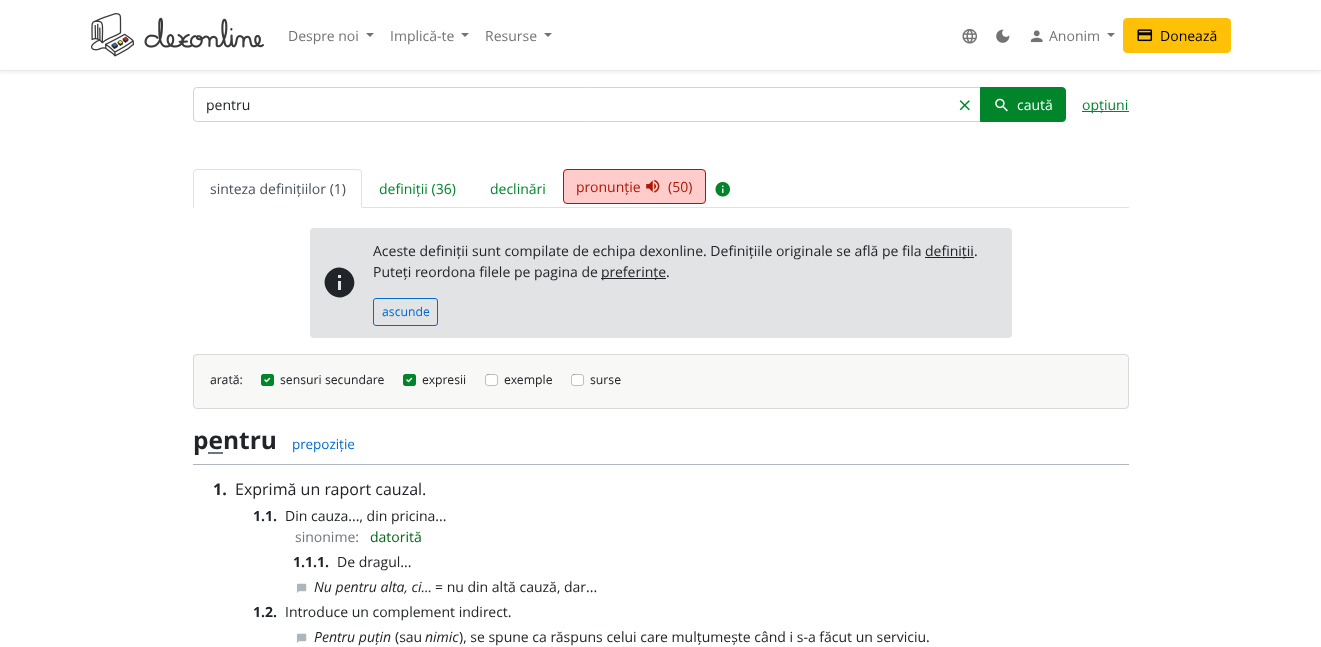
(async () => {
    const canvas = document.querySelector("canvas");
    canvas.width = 1321;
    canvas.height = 647;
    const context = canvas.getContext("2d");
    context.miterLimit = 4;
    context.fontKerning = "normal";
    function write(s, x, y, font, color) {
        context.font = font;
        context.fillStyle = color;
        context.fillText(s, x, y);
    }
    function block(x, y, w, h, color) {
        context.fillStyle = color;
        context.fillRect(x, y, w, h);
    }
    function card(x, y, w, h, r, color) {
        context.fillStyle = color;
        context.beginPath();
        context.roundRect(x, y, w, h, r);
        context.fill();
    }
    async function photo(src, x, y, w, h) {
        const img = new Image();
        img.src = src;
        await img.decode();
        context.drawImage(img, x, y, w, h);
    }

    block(0, 0, 1321, 647, "rgb(255, 255, 255)");
    context.save();
    context.beginPath();
    context.rect(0, 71, 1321, 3);
    context.clip();
    context.fillStyle = "rgba(0, 0, 0, 0.1)";
    context.filter = "blur(4px)";
    context.beginPath();
    context.rect(0, 0, 1321, 71);
    context.fill();
    context.filter = "none";
    context.restore();
    block(0, 70, 1321, 1, "rgb(232, 232, 232)");
    await photo("media/1.png", 91, 13, 173, 44);
    write("Despre noi", 288, 41, "14px Open Sans", "rgb(115, 115, 115)");
    context.beginPath();
    context.moveTo(366, 33);
    context.lineTo(374, 33);
    context.lineTo(370, 37);
    context.closePath();
    context.fill();
    write("Implică-te", 390, 41, "14px Open Sans", "rgb(115, 115, 115)");
    context.beginPath();
    context.moveTo(461, 33);
    context.lineTo(469, 33);
    context.lineTo(465, 37);
    context.closePath();
    context.fill();
    write("Resurse", 485, 41, "14px Open Sans", "rgb(115, 115, 115)");
    context.beginPath();
    context.moveTo(544, 33);
    context.lineTo(552, 33);
    context.lineTo(548, 37);
    context.closePath();
    context.fill();
    await photo("media/2.png", 962, 29, 15, 15);
    await photo("media/3.png", 996, 29, 14, 14);
    await photo("media/4.png", 1030, 30, 13, 13);
    write("Anonim", 1049, 41, "14px Open Sans", "rgb(115, 115, 115)");
    context.beginPath();
    context.moveTo(1107, 33);
    context.lineTo(1115, 33);
    context.lineTo(1111, 37);
    context.closePath();
    context.fill();
    context.fillStyle = "rgb(255, 193, 7)";
    context.beginPath();
    context.roundRect(1123.5, 18.5, 107, 34, 3.5);
    context.fill();
    context.strokeStyle = "rgb(255, 193, 7)";
    context.stroke();
    await photo("media/5.png", 1137, 29, 16, 13);
    write("Donează", 1160, 41, "14px Open Sans", "rgb(0, 0, 0)");
    context.beginPath();
    context.roundRect(193.5, 87.5, 789, 34, [3.5, 0, 0, 3.5]);
    context.strokeStyle = "rgb(206, 212, 218)";
    context.stroke();
    write("pentru", 206, 110, "14px Open Sans", "rgb(33, 37, 41)");
    await photo("media/6.png", 959, 100, 11, 11);
    context.fillStyle = "rgb(0, 133, 42)";
    context.beginPath();
    context.roundRect(980.5, 87.5, 85, 34, [0, 3.5, 3.5, 0]);
    context.fill();
    context.strokeStyle = "rgb(0, 133, 42)";
    context.stroke();
    await photo("media/7.png", 995, 98, 13, 14);
    write("caută", 1017, 110, "14px Open Sans", "rgb(255, 255, 255)");
    block(1082, 111, 47, 1, "rgb(0, 133, 42)");
    write("opțiuni", 1082, 110, "14px Open Sans", "rgb(0, 133, 42)");
    block(362, 207, 767, 1, "rgb(222, 226, 230)");
    context.beginPath();
    context.moveTo(197, 169);
    context.lineTo(194, 170);
    context.lineTo(195, 171);
    context.lineTo(197, 170);
    context.lineTo(358, 170);
    context.lineTo(360, 171);
    context.lineTo(361, 170);
    context.lineTo(358, 169);
    context.closePath();
    context.fill();
    context.beginPath();
    context.moveTo(362, 208);
    context.lineTo(362, 173);
    context.bezierCurveTo(362, 172, 361.5, 171, 361, 170);
    context.lineTo(360, 171);
    context.bezierCurveTo(361, 171, 361, 172, 361, 173);
    context.lineTo(361, 207);
    context.closePath();
    context.fill();
    context.fillStyle = "rgb(255, 255, 255)";
    context.beginPath();
    context.moveTo(362, 208);
    context.lineTo(361, 207);
    context.lineTo(194, 207);
    context.lineTo(193, 208);
    context.closePath();
    context.fill();
    context.fillStyle = "rgb(222, 226, 230)";
    context.beginPath();
    context.moveTo(193, 208);
    context.lineTo(194, 207);
    context.lineTo(194, 173);
    context.bezierCurveTo(194, 172, 194, 171, 195, 171);
    context.lineTo(194, 170);
    context.bezierCurveTo(193.5, 171, 193, 172, 193, 173);
    context.closePath();
    context.fill();
    write("sinteza definițiilor (1)", 210, 194, "14px Open Sans", "rgb(73, 80, 87)");
    write("definiții (36)", 379, 194, "14px Open Sans", "rgb(0, 133, 42)");
    write("declinări", 490, 194, "14px Open Sans", "rgb(0, 133, 42)");
    context.fillStyle = "rgb(255, 204, 204)";
    context.beginPath();
    context.roundRect(563.5, 169.5, 142, 34, 3.5);
    context.fill();
    context.strokeStyle = "rgb(173, 23, 0)";
    context.stroke();
    write("pronunție", 576, 192, "14px Open Sans", "rgb(173, 23, 0)");
    await photo("media/8.png", 646, 179, 14, 14);
    write("(50)", 668, 192, "14px Open Sans", "rgb(173, 23, 0)");
    await photo("media/9.png", 715, 182, 15, 15);
    card(310, 228, 702, 110, 4, "rgb(226, 227, 229)");
    context.fillStyle = "rgb(33, 37, 41)";
    context.beginPath();
    context.moveTo(341, 278);
    context.lineTo(341, 275);
    context.lineTo(338, 275);
    context.lineTo(338, 278);
    context.closePath();
    context.moveTo(341, 290);
    context.lineTo(341, 281);
    context.lineTo(338, 281);
    context.lineTo(338, 290);
    context.closePath();
    context.moveTo(329, 272);
    context.bezierCurveTo(343, 258.5, 363.5, 279, 350, 293);
    context.bezierCurveTo(336, 306.5, 315.5, 286, 329, 272);
    context.closePath();
    context.fill();
    write("Aceste definiții sunt compilate de echipa dexonline. Definițiile originale se află pe fila", 373, 256, "14px Open Sans", "rgb(33, 37, 41)");
    block(925, 257, 49, 1, "rgb(33, 37, 41)");
    write("definiții.", 925, 256, "14px Open Sans", "rgb(33, 37, 41)");
    write("Puteți reordona filele pe pagina de", 373, 277, "14px Open Sans", "rgb(33, 37, 41)");
    block(601, 278, 65, 1, "rgb(33, 37, 41)");
    write("preferințe.", 601, 277, "14px Open Sans", "rgb(33, 37, 41)");
    context.beginPath();
    context.roundRect(373.5, 298.5, 64, 27, 2.5);
    context.strokeStyle = "rgb(0, 108, 209)";
    context.stroke();
    write("ascunde", 382, 316, "12.25px Open Sans", "rgb(0, 108, 209)");
    card(193, 354, 936, 55, 4, "rgb(248, 249, 246)");
    context.beginPath();
    context.roundRect(193.5, 354.5, 935, 54, 3.5);
    context.strokeStyle = "rgba(0, 0, 0, 0.12)";
    context.stroke();
    write("arată:", 210, 384, "12.25px Open Sans", "rgb(33, 37, 41)");
    card(261, 374, 13, 12, 3, "rgb(0, 133, 42)");
    context.beginPath();
    context.moveTo(265, 380);
    context.lineTo(266.5, 381.5);
    context.lineTo(269.5, 378.5);
    context.strokeStyle = "rgb(255, 255, 255)";
    context.lineWidth = 1.5;
    context.lineCap = "round";
    context.lineJoin = "round";
    context.stroke();
    context.beginPath();
    context.roundRect(261.5, 374.5, 12, 11, 2.5);
    context.strokeStyle = "rgb(0, 133, 42)";
    context.lineWidth = 1;
    context.lineJoin = "miter";
    context.stroke();
    write("sensuri secundare", 280, 384, "12.25px Open Sans", "rgb(33, 37, 41)");
    card(403, 374, 13, 12, 3, "rgb(0, 133, 42)");
    context.beginPath();
    context.moveTo(407, 380);
    context.lineTo(408.5, 381.5);
    context.lineTo(411.5, 378.5);
    context.strokeStyle = "rgb(255, 255, 255)";
    context.lineWidth = 1.5;
    context.lineJoin = "round";
    context.stroke();
    context.beginPath();
    context.roundRect(403.5, 374.5, 12, 11, 2.5);
    context.strokeStyle = "rgb(0, 133, 42)";
    context.lineWidth = 1;
    context.lineJoin = "miter";
    context.stroke();
    write("expresii", 422, 384, "12.25px Open Sans", "rgb(33, 37, 41)");
    card(485, 374, 13, 12, 3, "rgb(255, 255, 255)");
    context.beginPath();
    context.roundRect(485.5, 374.5, 12, 11, 2.5);
    context.strokeStyle = "rgba(0, 0, 0, 0.25)";
    context.stroke();
    write("exemple", 504, 384, "12.25px Open Sans", "rgb(33, 37, 41)");
    card(571, 374, 13, 12, 3, "rgb(255, 255, 255)");
    context.beginPath();
    context.roundRect(571.5, 374.5, 12, 11, 2.5);
    context.stroke();
    write("surse", 590, 384, "12.25px Open Sans", "rgb(33, 37, 41)");
    block(193, 464, 936, 1, "rgb(173, 181, 189)");
    write("pentru", 193, 449, "bold 24.5px Open Sans", "rgb(33, 37, 41)");
    write("prepoziție", 292, 449, "13.5px Open Sans", "rgb(0, 108, 209)");
    block(208, 452, 15, 2, "rgb(108, 117, 125)");
    write("1.", 213, 495, "bold 16px Open Sans", "rgb(33, 37, 41)");
    write("Exprimă un raport cauzal.", 235, 495, "16px Open Sans", "rgb(33, 37, 41)");
    write("1.1.", 253, 521, "bold 14px Open Sans", "rgb(33, 37, 41)");
    write("Din cauza..., din pricina...", 285, 521, "14px Open Sans", "rgb(33, 37, 41)");
    write("sinonime:", 295, 542, "14px Open Sans", "rgb(108, 117, 125)");
    write("datorită", 370, 542, "14px Open Sans", "rgb(0, 102, 21)");
    write("1.1.1.", 293, 567, "bold 14px Open Sans", "rgb(33, 37, 41)");
    write("De dragul...", 337, 567, "14px Open Sans", "rgb(33, 37, 41)");
    await photo("media/10.png", 296, 583, 11, 10);
    write("Nu pentru alta, ci...", 314, 592, "italic 14px Open Sans", "rgb(33, 37, 41)");
    write("= nu din altă cauză, dar...", 435, 592, "14px Open Sans", "rgb(33, 37, 41)");
    write("1.2.", 253, 617, "bold 14px Open Sans", "rgb(33, 37, 41)");
    write("Introduce un complement indirect.", 285, 617, "14px Open Sans", "rgb(33, 37, 41)");
    await photo("media/10.png", 296, 633, 11, 10);
    write("Pentru puțin", 314, 642, "italic 14px Open Sans", "rgb(33, 37, 41)");
    write("(sau", 395, 642, "14px Open Sans", "rgb(33, 37, 41)");
    write("nimic", 425, 642, "italic 14px Open Sans", "rgb(33, 37, 41)");
    write("), se spune ca răspuns celui care mulțumește când i s-a făcut un serviciu.", 459, 642, "14px Open Sans", "rgb(33, 37, 41)");
})();
